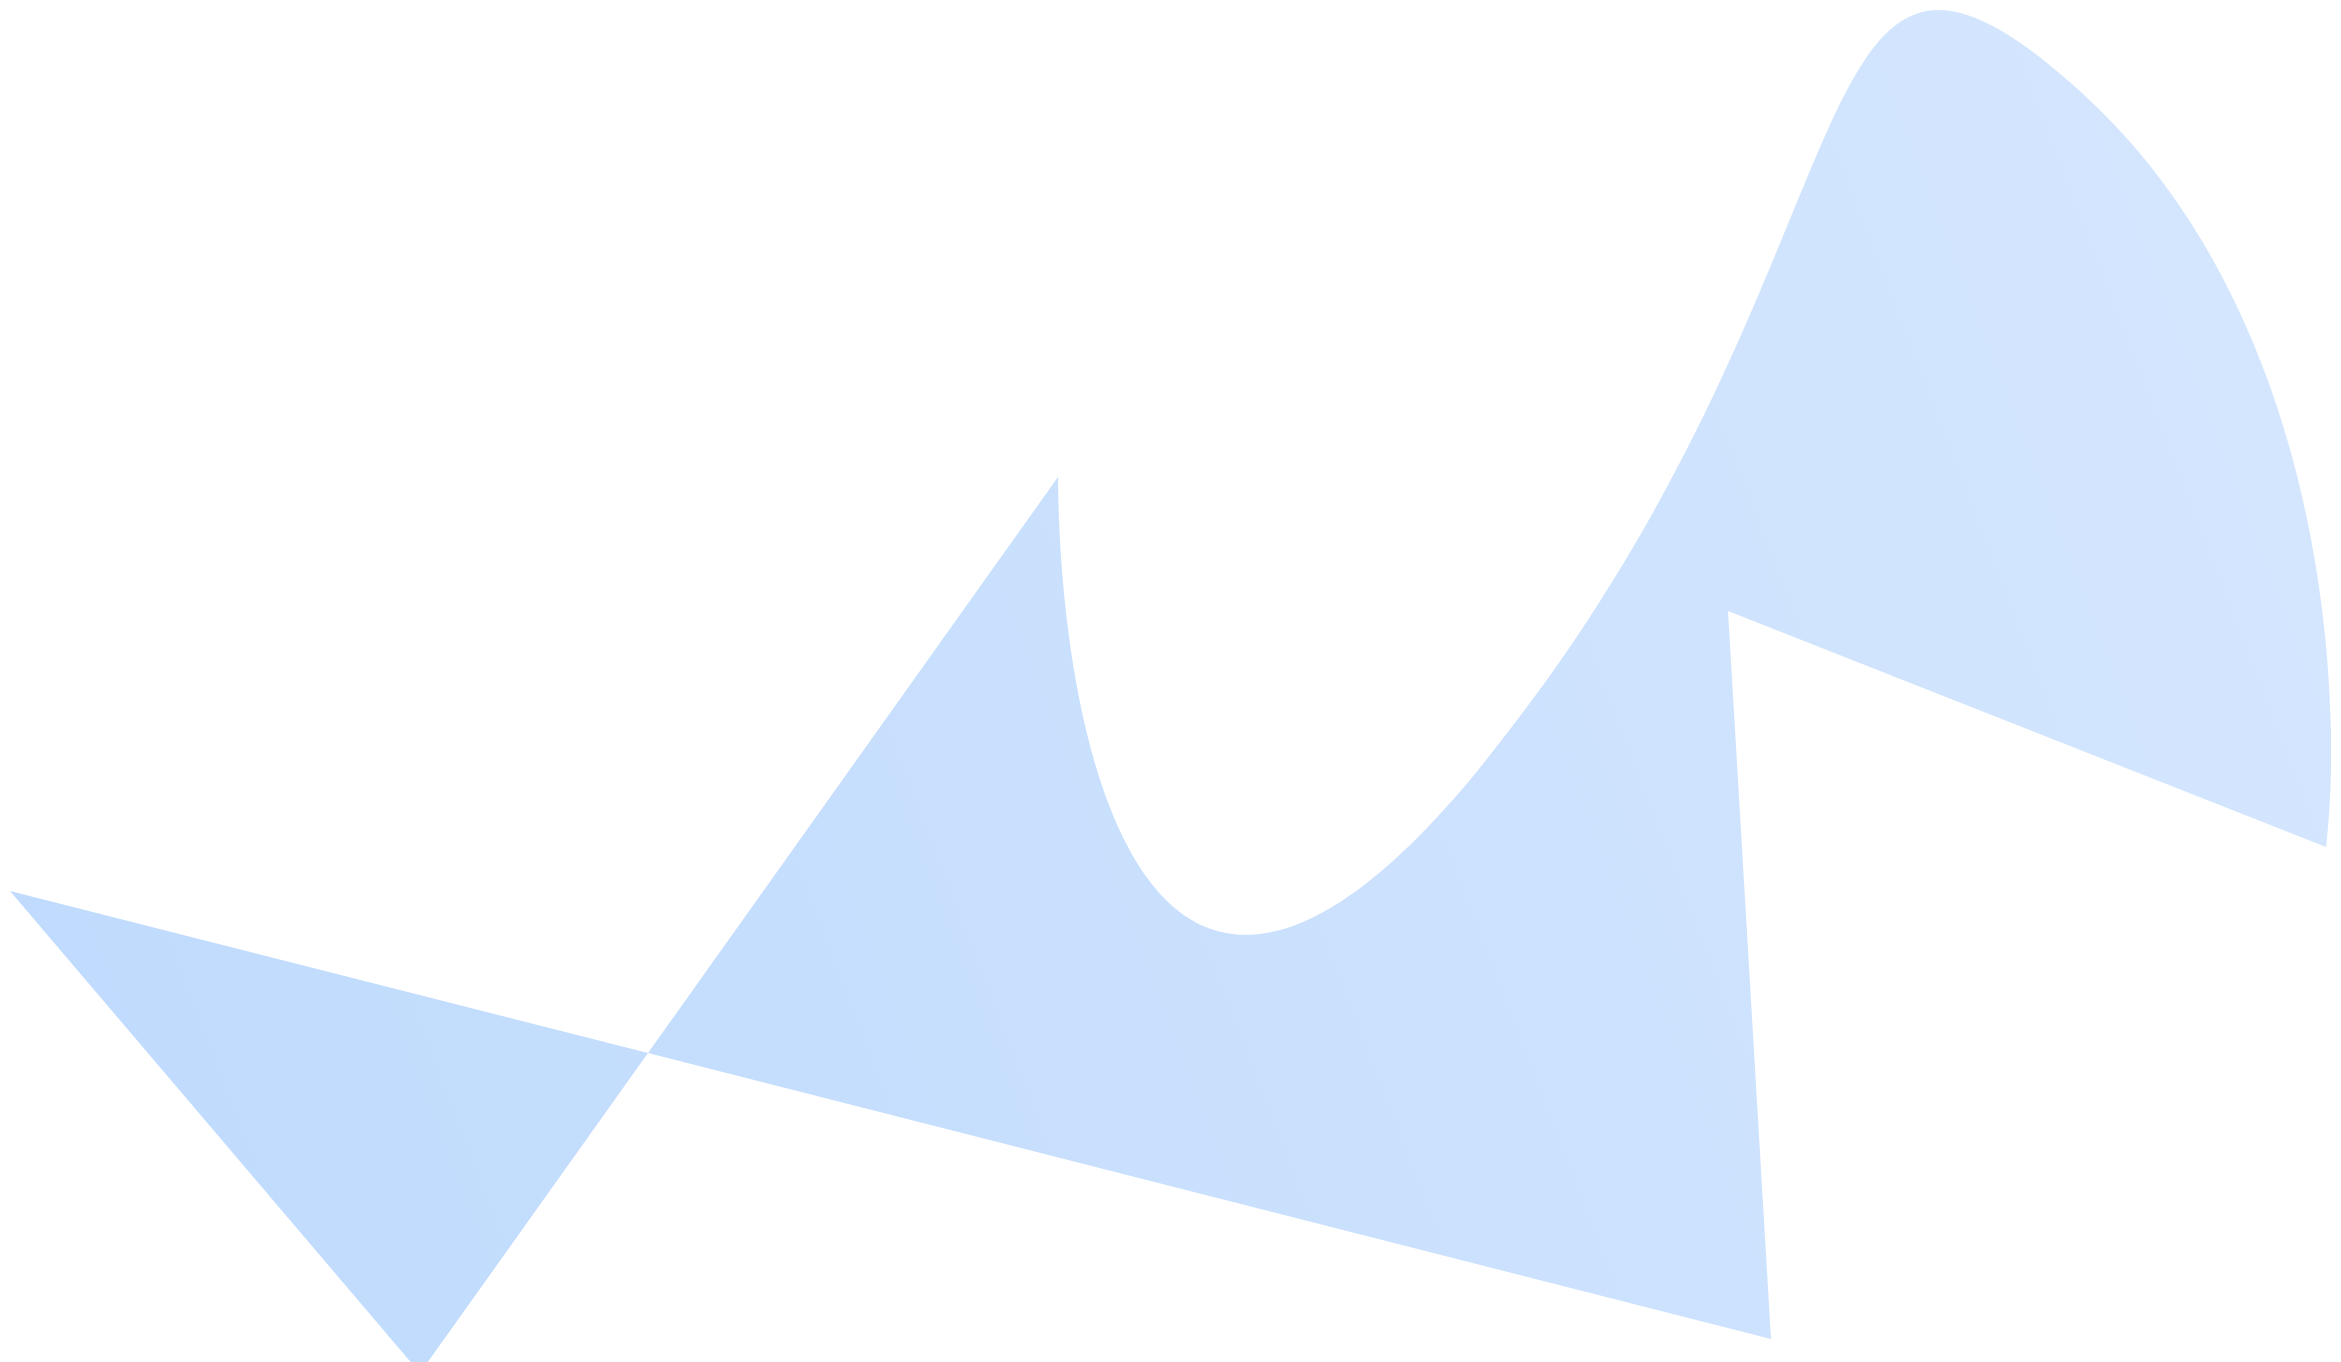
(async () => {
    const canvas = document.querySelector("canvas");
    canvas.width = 2341;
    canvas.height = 1362;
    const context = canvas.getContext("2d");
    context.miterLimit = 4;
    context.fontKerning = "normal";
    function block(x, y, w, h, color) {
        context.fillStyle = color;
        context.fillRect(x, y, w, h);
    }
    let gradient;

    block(0, 0, 2341, 1362, "rgb(255, 255, 255)");
    context.save();
    context.beginPath();
    context.rect(10, 10, 2321, 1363);
    context.clip();
    gradient = context.createLinearGradient(2332, 10, -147, 964);
    gradient.addColorStop(0, "rgb(214, 231, 254)");
    gradient.addColorStop(1, "rgb(190, 218, 253)");
    context.fillStyle = gradient;
    context.beginPath();
    context.moveTo(648, 1053);
    context.lineTo(420, 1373);
    context.lineTo(10, 891);
    context.lineTo(648, 1053);
    context.lineTo(1058, 477);
    context.bezierCurveTo(1060, 743, 1148, 1174, 1479, 769);
    context.bezierCurveTo(1893, 263, 1783, -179, 2082, 93);
    context.bezierCurveTo(2322, 311, 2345, 687, 2326, 847);
    context.lineTo(1728, 611);
    context.lineTo(1771, 1339);
    context.closePath();
    context.fill();
    context.restore();
})();
